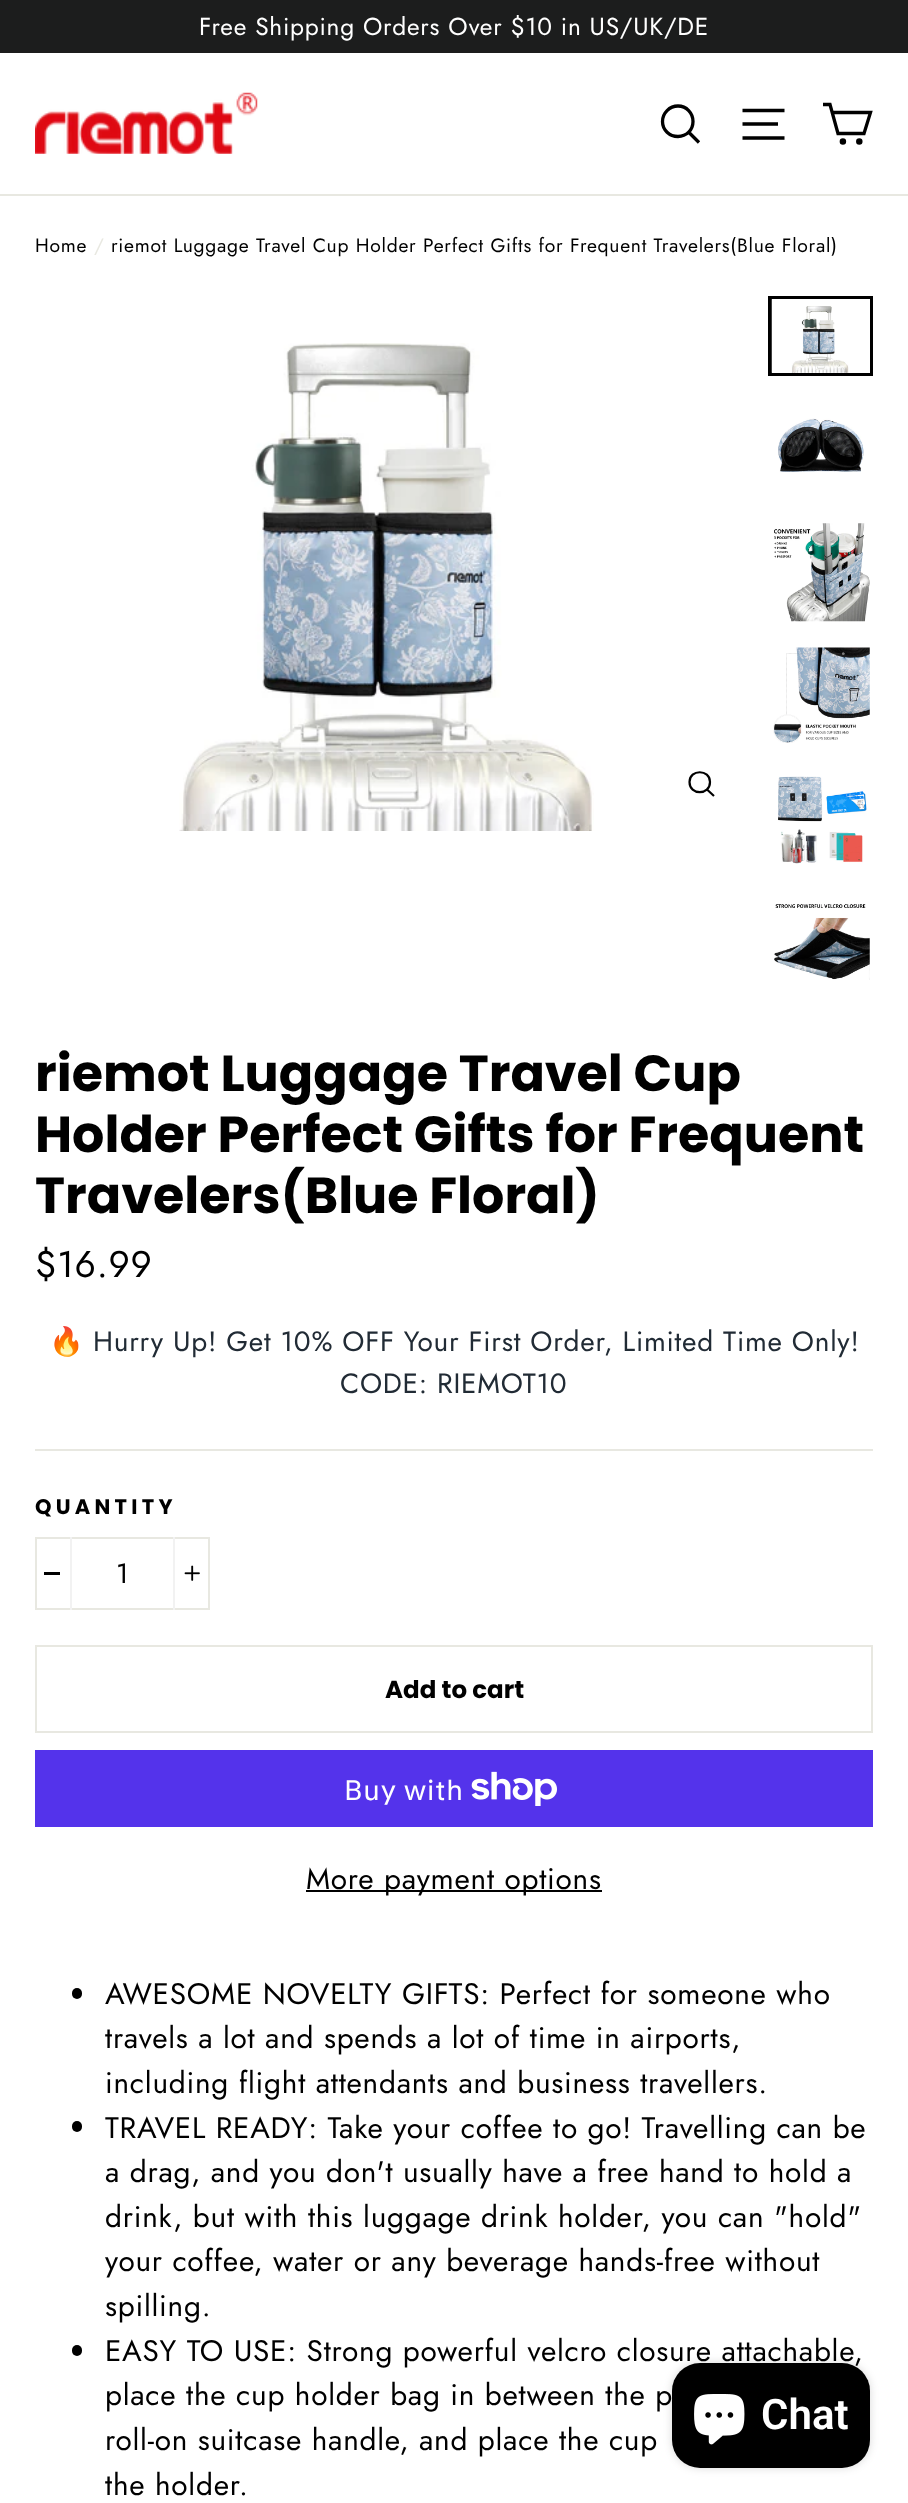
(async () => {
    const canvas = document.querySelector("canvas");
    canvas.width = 908;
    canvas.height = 2503;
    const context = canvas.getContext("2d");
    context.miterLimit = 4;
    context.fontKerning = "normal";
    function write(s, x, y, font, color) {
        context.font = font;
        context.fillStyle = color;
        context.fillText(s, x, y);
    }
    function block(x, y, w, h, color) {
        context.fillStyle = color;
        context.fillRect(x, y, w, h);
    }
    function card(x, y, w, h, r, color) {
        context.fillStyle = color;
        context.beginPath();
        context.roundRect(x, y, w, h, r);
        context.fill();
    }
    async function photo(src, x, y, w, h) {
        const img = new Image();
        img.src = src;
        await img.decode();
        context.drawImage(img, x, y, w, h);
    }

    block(0, 0, 908, 2503, "rgb(255, 255, 255)");
    block(0, 0, 908, 53, "rgb(28, 29, 29)");
    context.letterSpacing = "0.75px";
    write("Free Shipping Orders Over $10 in US/UK/DE", 199, 35, "24.5px Jost", "rgb(255, 255, 255)");
    block(0, 194, 908, 2, "rgb(232, 232, 225)");
    await photo("media/1.png", 35, 92, 223, 62);
    context.beginPath();
    context.moveTo(693, 121.5);
    context.bezierCurveTo(693, 130, 686.5, 136.5, 678, 136.5);
    context.bezierCurveTo(669.5, 136.5, 662.5, 130, 662.5, 121.5);
    context.bezierCurveTo(662.5, 113, 669.5, 106, 678, 106);
    context.bezierCurveTo(686.5, 106, 693, 113, 693, 121.5);
    context.closePath();
    context.moveTo(699, 142.5);
    context.lineTo(689, 132.5);
    context.strokeStyle = "rgb(0, 0, 0)";
    context.lineWidth = 3.3;
    context.stroke();
    context.beginPath();
    context.moveTo(742.5, 110.5);
    context.lineTo(784.5, 110.5);
    context.moveTo(742.5, 124);
    context.lineTo(778, 124);
    context.moveTo(742.5, 138);
    context.lineTo(784.5, 138);
    context.stroke();
    context.beginPath();
    context.moveTo(832, 112.5);
    context.lineTo(870.5, 112.5);
    context.lineTo(864, 133.5);
    context.lineTo(838, 133.5);
    context.lineTo(830, 104.5);
    context.lineTo(823, 104.5);
    context.stroke();
    context.beginPath();
    context.arc(842.9, 141.5, 1.6, 0, Math.PI * 2);
    context.stroke();
    context.beginPath();
    context.arc(859.3, 141.5, 1.6, 0, Math.PI * 2);
    context.stroke();
    write("Home", 35, 252, "19.25px Jost", "rgb(0, 0, 0)");
    write("/", 94, 252, "19.25px Jost", "rgb(232, 232, 225)");
    write("riemot Luggage Travel Cup Holder Perfect Gifts for Frequent Travelers(Blue Floral)", 111, 252, "19.25px Jost", "rgb(0, 0, 0)");
    await photo("media/2.png", 179, 343, 415, 488);
    context.beginPath();
    context.moveTo(710, 782);
    context.bezierCurveTo(710, 795.5, 689.5, 795.5, 689.5, 782);
    context.bezierCurveTo(689.5, 769, 710, 769, 710, 782);
    context.closePath();
    context.moveTo(714, 796);
    context.lineTo(707, 789.5);
    context.lineWidth = 2.2;
    context.stroke();
    context.lineWidth = 4;
    context.strokeRect(770, 298, 101, 76);
    block(772, 299, 98, 74, "rgb(255, 255, 255)");
    await photo("media/3.png", 771, 299, 78, 74);
    await photo("media/4.png", 778, 418, 86, 54);
    await photo("media/5.png", 774, 523, 96, 99);
    await photo("media/6.png", 773, 647, 97, 96);
    await photo("media/7.png", 778, 776, 89, 88);
    await photo("media/8.png", 774, 904, 96, 76);
    context.letterSpacing = "0px";
    write("riemot Luggage Travel Cup", 35, 1091, "bold 50.75px Poppins", "rgb(0, 0, 0)");
    write("Holder Perfect Gifts for Frequent", 35, 1152, "bold 50.75px Poppins", "rgb(0, 0, 0)");
    write("Travelers(Blue Floral)", 35, 1213, "bold 50.75px Poppins", "rgb(0, 0, 0)");
    context.letterSpacing = "0.75px";
    write("$16.99", 35, 1277, "37px Jost", "rgb(0, 0, 0)");
    write("🔥", 49, 1351, "28px Noto Color Emoji", "rgb(33, 43, 53)");
    write("Hurry Up! Get 10% OFF Your First Order, Limited Time Only!", 93, 1351, "28px Jost", "rgb(33, 43, 53)");
    write("CODE: RIEMOT10", 340, 1393, "28px Jost", "rgb(33, 43, 53)");
    block(35, 1449, 838, 2, "rgb(232, 232, 225)");
    context.letterSpacing = "4.25px";
    write("QUANTITY", 35, 1514, "bold 21px Poppins", "rgb(0, 0, 0)");
    context.strokeStyle = "rgb(232, 232, 225)";
    context.lineWidth = 2;
    context.strokeRect(36, 1538, 173, 71);
    block(70, 1537, 2, 73, "rgb(242, 242, 242)");
    block(44, 1572, 16, 3, "rgb(0, 0, 0)");
    context.letterSpacing = "1px";
    write("1", 116, 1583, "28px Jost", "rgb(0, 0, 0)");
    block(173, 1537, 2, 73, "rgb(242, 242, 242)");
    await photo("media/9.png", 184, 1565, 16, 16);
    context.strokeRect(36, 1646, 836, 86);
    context.letterSpacing = "0px";
    write("Add to cart", 385, 1698, "bold 24.5px Poppins", "rgb(0, 0, 0)");
    block(35, 1750, 838, 77, "rgb(84, 51, 235)");
    context.letterSpacing = "0.75px";
    write("Buy with", 344, 1800, "28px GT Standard", "rgb(255, 255, 255)");
    await photo("media/10.png", 471, 1771, 86, 35);
    block(306, 1890, 296, 2, "rgb(0, 0, 0)");
    write("More payment options", 306, 1889, "29.75px Jost", "rgb(0, 0, 0)");
    card(72, 1988, 10, 11, 5, "rgb(0, 0, 0)");
    write("AWESOME NOVELTY GIFTS: Perfect for someone who", 105, 2004, "29.75px Jost", "rgb(0, 0, 0)");
    write("travels a lot and spends a lot of time in airports,", 105, 2048, "29.75px Jost", "rgb(0, 0, 0)");
    write("including flight attendants and business travellers.", 105, 2093, "29.75px Jost", "rgb(0, 0, 0)");
    card(72, 2121, 10, 11, 5, "rgb(0, 0, 0)");
    write("TRAVEL READY: Take your coffee to go! Travelling can be", 105, 2138, "29.75px Jost", "rgb(0, 0, 0)");
    write("a drag, and you don't usually have a free hand to hold a", 105, 2182, "29.75px Jost", "rgb(0, 0, 0)");
    write("drink, but with this luggage drink holder, you can \"hold\"", 105, 2227, "29.75px Jost", "rgb(0, 0, 0)");
    write("your coffee, water or any beverage hands-free without", 105, 2271, "29.75px Jost", "rgb(0, 0, 0)");
    write("spilling.", 105, 2316, "29.75px Jost", "rgb(0, 0, 0)");
    card(72, 2345, 10, 11, 5, "rgb(0, 0, 0)");
    write("EASY TO USE: Strong powerful velcro closure attachable,", 105, 2361, "29.75px Jost", "rgb(0, 0, 0)");
    write("place the cup holder bag in between the p", 105, 2405, "29.75px Jost", "rgb(0, 0, 0)");
    write("roll-on suitcase handle, and place the cup", 105, 2450, "29.75px Jost", "rgb(0, 0, 0)");
    write("the holder.", 105, 2495, "29.75px Jost", "rgb(0, 0, 0)");
    context.fillStyle = "rgba(0, 0, 0, 0.15)";
    context.filter = "blur(4.5px)";
    context.beginPath();
    context.roundRect(672, 2363, 198, 105, 28);
    context.fill();
    context.filter = "none";
    card(672, 2363, 198, 105, 28, "rgb(0, 0, 0)");
    await photo("media/11.png", 694, 2394, 51, 51);
    context.letterSpacing = "0px";
    write("Chat", 761, 2429, "600 42px Roboto", "rgb(255, 255, 255)");
})();
